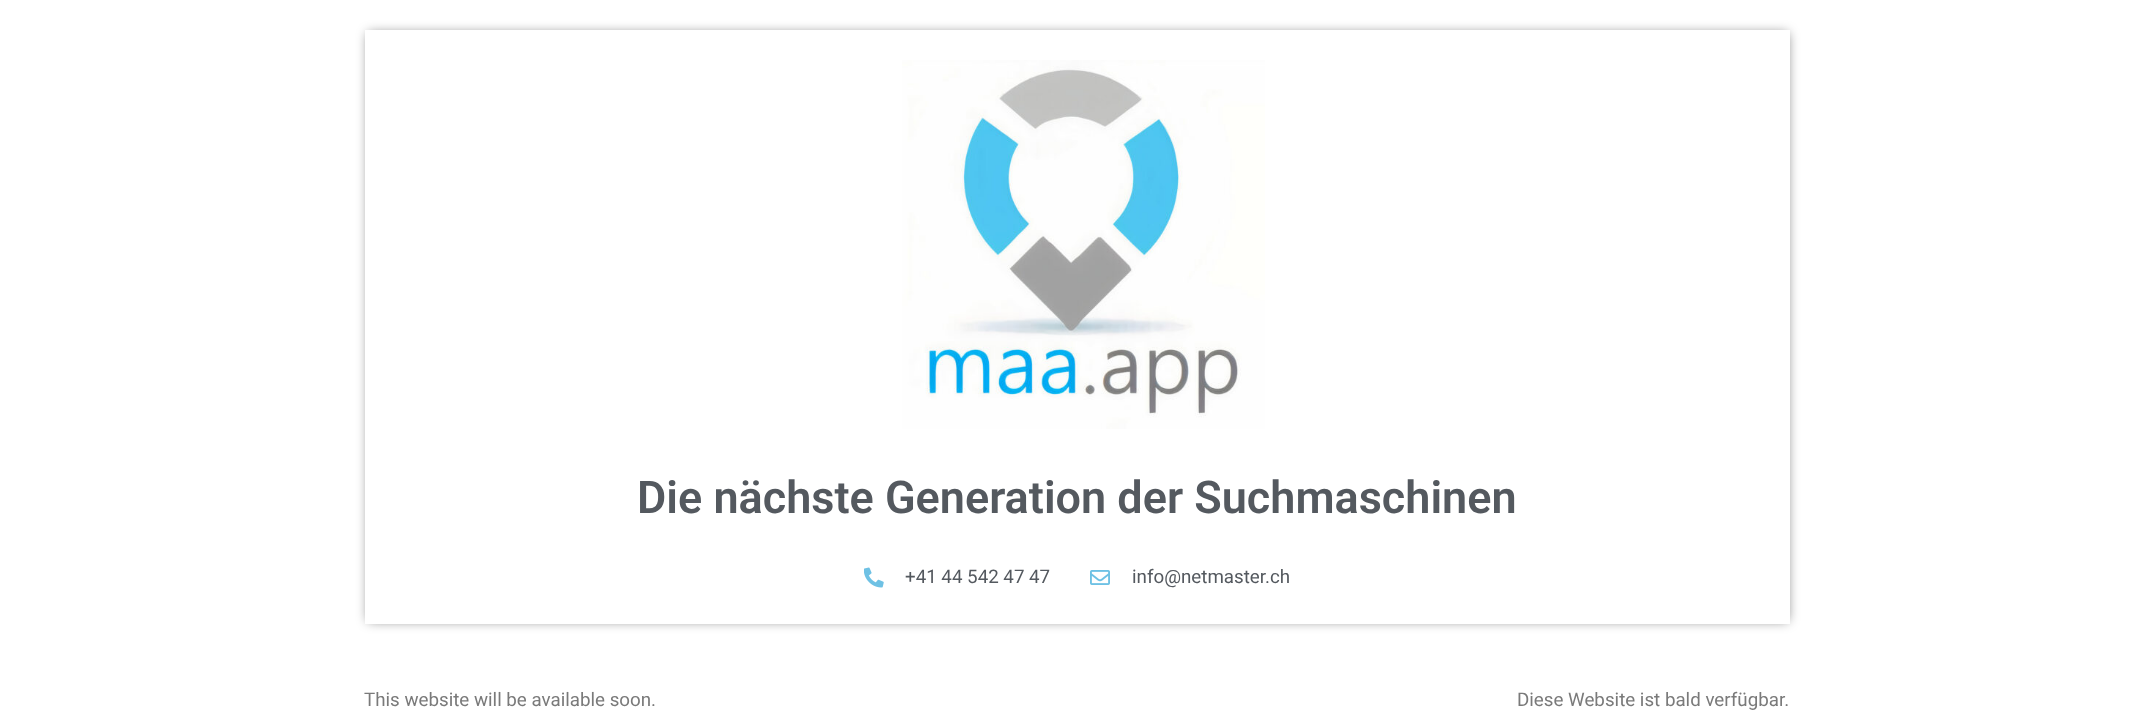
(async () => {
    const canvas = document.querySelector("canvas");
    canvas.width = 2153;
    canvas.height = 710;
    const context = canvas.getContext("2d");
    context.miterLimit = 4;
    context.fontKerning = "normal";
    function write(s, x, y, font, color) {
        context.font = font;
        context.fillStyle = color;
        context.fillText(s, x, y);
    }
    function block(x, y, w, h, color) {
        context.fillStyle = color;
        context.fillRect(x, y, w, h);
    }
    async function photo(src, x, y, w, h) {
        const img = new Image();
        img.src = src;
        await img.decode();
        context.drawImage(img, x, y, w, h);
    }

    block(0, 0, 2153, 710, "rgb(255, 255, 255)");
    context.save();
    context.beginPath();
    context.moveTo(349, 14);
    context.lineTo(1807, 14);
    context.lineTo(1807, 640);
    context.lineTo(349, 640);
    context.closePath();
    context.moveTo(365, 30);
    context.lineTo(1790, 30);
    context.lineTo(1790, 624);
    context.lineTo(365, 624);
    context.closePath();
    context.clip("evenodd");
    context.fillStyle = "rgba(0, 0, 0, 0.5)";
    context.filter = "blur(6px)";
    context.beginPath();
    context.rect(368, 33, 1420, 588);
    context.fill();
    context.filter = "none";
    context.restore();
    await photo("media/1.png", 902, 60, 363, 369);
    write("Die nächste Generation der Suchmaschinen", 637, 513, "600 45px Roboto", "rgb(84, 89, 95)");
    await photo("media/2.png", 864, 567, 20, 21);
    write("+41 44 542 47 47", 905, 583, "18.75px Roboto", "rgb(84, 89, 95)");
    await photo("media/3.png", 1090, 570, 20, 15);
    write("info@netmaster.ch", 1132, 583, "18.75px Roboto", "rgb(84, 89, 95)");
    write("This website will be available soon.", 364, 706, "18.75px Roboto", "rgb(122, 122, 122)");
    write("Diese Website ist bald verfügbar.", 1517, 706, "18.75px Roboto", "rgb(122, 122, 122)");
})();
